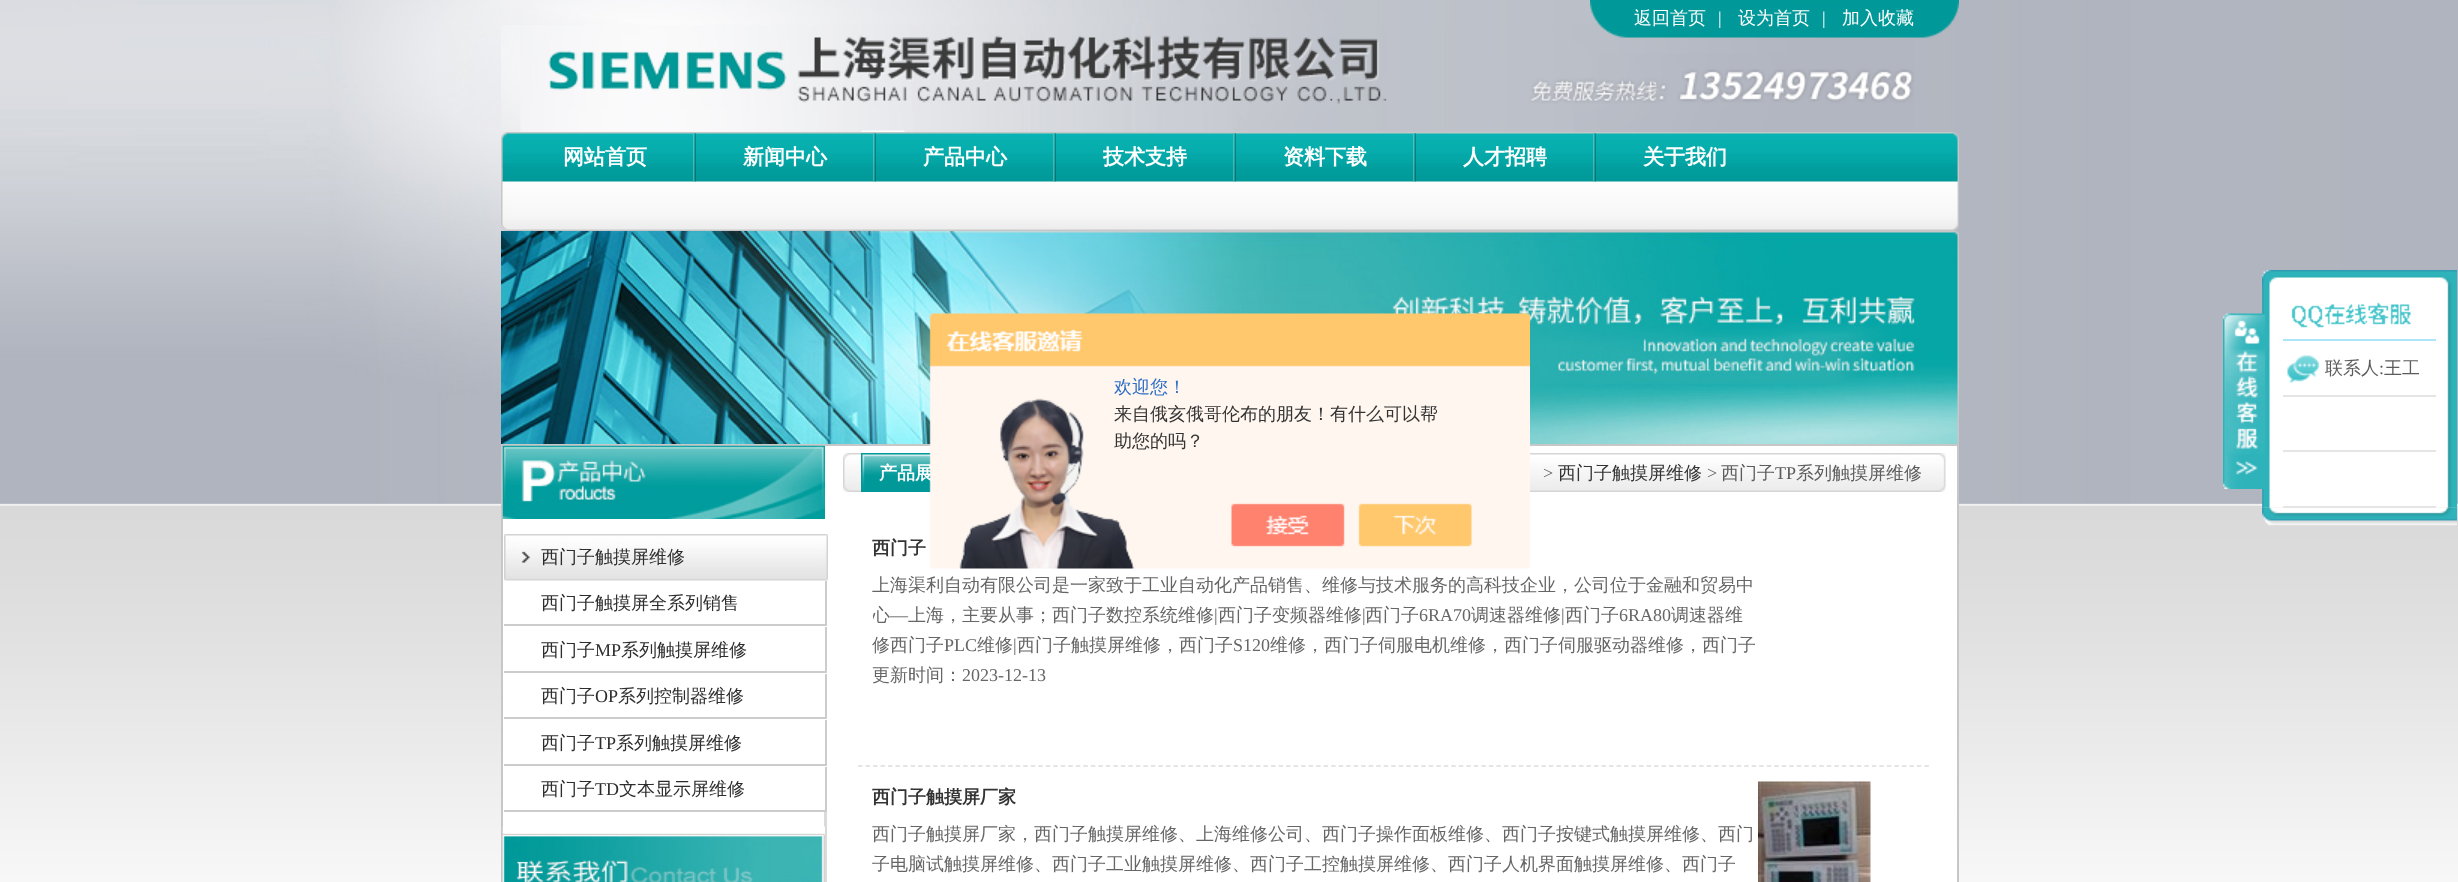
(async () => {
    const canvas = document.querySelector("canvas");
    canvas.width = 2458;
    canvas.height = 882;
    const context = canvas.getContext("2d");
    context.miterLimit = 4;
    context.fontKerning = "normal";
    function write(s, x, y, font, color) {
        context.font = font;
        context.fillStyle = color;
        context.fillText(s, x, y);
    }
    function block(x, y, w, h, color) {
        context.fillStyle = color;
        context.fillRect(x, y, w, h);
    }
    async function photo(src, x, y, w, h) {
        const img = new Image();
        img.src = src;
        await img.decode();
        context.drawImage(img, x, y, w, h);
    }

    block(0, 0, 2458, 882, "rgb(255, 255, 255)");
    await photo("media/1.png", 0, 0, 2458, 882);
    await photo("media/2.png", 501, 25, 1413, 107);
    await photo("media/3.png", 1590, 0, 369, 38);
    write("返回首页", 1634, 24, "500 18px WenQuanYi Zen Hei", "rgb(255, 255, 255)");
    write("|", 1718, 24, "18px Liberation Serif", "rgb(255, 255, 255)");
    write("设为首页", 1738, 24, "500 18px WenQuanYi Zen Hei", "rgb(255, 255, 255)");
    write("|", 1822, 24, "18px Liberation Serif", "rgb(255, 255, 255)");
    write("加入收藏", 1842, 24, "500 18px WenQuanYi Zen Hei", "rgb(255, 255, 255)");
    await photo("media/4.png", 507, 132, 1446, 99);
    await photo("media/5.png", 501, 132, 6, 99);
    await photo("media/6.png", 693, 133, 3, 49);
    write("网站首页", 563, 164, "bold 21px WenQuanYi Zen Hei", "rgb(255, 255, 255)");
    await photo("media/6.png", 873, 133, 3, 49);
    write("新闻中心", 743, 164, "bold 21px WenQuanYi Zen Hei", "rgb(255, 255, 255)");
    await photo("media/7.png", 1053, 133, 3, 49);
    write("产品中心", 923, 164, "bold 21px WenQuanYi Zen Hei", "rgb(255, 255, 255)");
    await photo("media/7.png", 1233, 133, 3, 49);
    write("技术支持", 1103, 164, "bold 21px WenQuanYi Zen Hei", "rgb(255, 255, 255)");
    await photo("media/6.png", 1413, 133, 3, 49);
    write("资料下载", 1283, 164, "bold 21px WenQuanYi Zen Hei", "rgb(255, 255, 255)");
    await photo("media/6.png", 1593, 133, 3, 49);
    write("人才招聘", 1463, 164, "bold 21px WenQuanYi Zen Hei", "rgb(255, 255, 255)");
    write("关于我们", 1643, 164, "bold 21px WenQuanYi Zen Hei", "rgb(255, 255, 255)");
    await photo("media/8.png", 1953, 132, 6, 99);
    await photo("media/9.png", 501, 231, 1458, 213);
    block(503, 446, 1454, 436, "rgb(255, 255, 255)");
    block(824, 812, 3, 70, "rgb(219, 218, 218)");
    context.strokeStyle = "rgb(199, 199, 199)";
    context.lineWidth = 2;
    context.strokeRect(502, 445, 1456, 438);
    await photo("media/11.png", 2262, 506, 195, 20);
    await photo("media/13.png", 2262, 285, 195, 222);
    await photo("media/10.png", 2223, 313, 42, 176);
    await photo("media/12.png", 2262, 270, 195, 15);
    block(2283, 339, 153, 2, "rgb(172, 229, 249)");
    await photo("media/14.png", 2291, 302, 120, 26);
    block(2283, 395, 153, 2, "rgb(230, 229, 228)");
    await photo("media/15.png", 2287, 355, 33, 28);
    write("联系人", 2325, 374, "500 18px WenQuanYi Zen Hei", "rgb(92, 92, 92)");
    write(":", 2379, 374, "18px Liberation Serif", "rgb(92, 92, 92)");
    write("王工", 2384, 374, "500 18px WenQuanYi Zen Hei", "rgb(92, 92, 92)");
    block(2283, 450, 153, 2, "rgb(230, 229, 228)");
    block(2283, 506, 153, 2, "rgb(230, 229, 228)");
    await photo("media/16.png", 502, 445, 323, 74);
    await photo("media/17.png", 504, 534, 324, 47);
    write("西门子触摸屏维修", 541, 563, "500 18px WenQuanYi Zen Hei", "rgb(45, 45, 45)");
    block(825, 581, 2, 45, "rgb(204, 204, 204)");
    block(504, 624, 323, 2, "rgb(204, 204, 204)");
    write("西门子触摸屏全系列销售", 541, 609, "500 18px WenQuanYi Zen Hei", "rgb(45, 45, 45)");
    block(825, 627, 2, 45, "rgb(204, 204, 204)");
    block(504, 671, 323, 2, "rgb(204, 204, 204)");
    write("西门子", 541, 656, "500 18px WenQuanYi Zen Hei", "rgb(45, 45, 45)");
    write("MP", 595, 656, "18px Liberation Serif", "rgb(45, 45, 45)");
    write("系列触摸屏维修", 621, 656, "500 18px WenQuanYi Zen Hei", "rgb(45, 45, 45)");
    block(825, 674, 2, 45, "rgb(204, 204, 204)");
    block(504, 717, 323, 2, "rgb(204, 204, 204)");
    write("西门子", 541, 702, "500 18px WenQuanYi Zen Hei", "rgb(45, 45, 45)");
    write("OP", 595, 702, "18px Liberation Serif", "rgb(45, 45, 45)");
    write("系列控制器维修", 618, 702, "500 18px WenQuanYi Zen Hei", "rgb(45, 45, 45)");
    block(825, 720, 2, 45, "rgb(204, 204, 204)");
    block(504, 764, 323, 2, "rgb(204, 204, 204)");
    write("西门子", 541, 749, "500 18px WenQuanYi Zen Hei", "rgb(45, 45, 45)");
    write("TP", 595, 749, "18px Liberation Serif", "rgb(45, 45, 45)");
    write("系列触摸屏维修", 616, 749, "500 18px WenQuanYi Zen Hei", "rgb(45, 45, 45)");
    block(825, 767, 2, 45, "rgb(204, 204, 204)");
    block(504, 810, 323, 2, "rgb(204, 204, 204)");
    write("西门子", 541, 795, "500 18px WenQuanYi Zen Hei", "rgb(45, 45, 45)");
    write("TD", 595, 795, "18px Liberation Serif", "rgb(45, 45, 45)");
    write("文本显示屏维修", 619, 795, "500 18px WenQuanYi Zen Hei", "rgb(45, 45, 45)");
    await photo("media/18.png", 502, 826, 323, 56);
    await photo("media/19.png", 843, 453, 1103, 39);
    await photo("media/20.png", 861, 453, 70, 39);
    write("产品展", 879, 479, "bold 18px WenQuanYi Zen Hei", "rgb(255, 255, 255)");
    write(">", 1543, 479, "18px Liberation Serif", "rgb(92, 92, 92)");
    write("西门子触摸屏维修", 1558, 479, "500 18px WenQuanYi Zen Hei", "rgb(51, 51, 51)");
    write(">", 1707, 479, "18px Liberation Serif", "rgb(92, 92, 92)");
    write("西门子", 1721, 479, "500 18px WenQuanYi Zen Hei", "rgb(92, 92, 92)");
    write("TP", 1775, 479, "18px Liberation Serif", "rgb(92, 92, 92)");
    write("系列触摸屏维修", 1796, 479, "500 18px WenQuanYi Zen Hei", "rgb(92, 92, 92)");
    context.beginPath();
    context.moveTo(858, 766);
    context.lineTo(1930.5, 766);
    context.strokeStyle = "rgb(221, 221, 221)";
    context.lineWidth = 1.5;
    context.setLineDash([4.5, 3.01]);
    context.stroke();
    write("西门子", 872, 554, "bold 18px WenQuanYi Zen Hei", "rgb(51, 51, 51)");
    write("上海渠利自动有限公司是一家致于工业自动化产品销售、维修与技术服务的高科技企业，公司位于金融和贸易中", 872, 591, "500 18px WenQuanYi Zen Hei", "rgb(102, 102, 102)");
    context.save();
    context.beginPath();
    context.rect(873, 570, 885, 90);
    context.clip();
    write("心", 872, 621, "500 18px WenQuanYi Zen Hei", "rgb(102, 102, 102)");
    context.restore();
    write("—", 890, 621, "18px Liberation Serif", "rgb(102, 102, 102)");
    write("上海，主要从事；西门子数控系统维修", 908, 621, "500 18px WenQuanYi Zen Hei", "rgb(102, 102, 102)");
    write("|", 1214, 621, "18px Liberation Serif", "rgb(102, 102, 102)");
    write("西门子变频器维修", 1218, 621, "500 18px WenQuanYi Zen Hei", "rgb(102, 102, 102)");
    write("|", 1362, 621, "18px Liberation Serif", "rgb(102, 102, 102)");
    write("西门子", 1365, 621, "500 18px WenQuanYi Zen Hei", "rgb(102, 102, 102)");
    write("6RA70", 1419, 621, "18px Liberation Serif", "rgb(102, 102, 102)");
    write("调速器维修", 1471, 621, "500 18px WenQuanYi Zen Hei", "rgb(102, 102, 102)");
    write("|", 1561, 621, "18px Liberation Serif", "rgb(102, 102, 102)");
    write("西门子", 1565, 621, "500 18px WenQuanYi Zen Hei", "rgb(102, 102, 102)");
    write("6RA80", 1619, 621, "18px Liberation Serif", "rgb(102, 102, 102)");
    write("调速器维", 1671, 621, "500 18px WenQuanYi Zen Hei", "rgb(102, 102, 102)");
    write("修西门子", 872, 651, "500 18px WenQuanYi Zen Hei", "rgb(102, 102, 102)");
    write("PLC", 944, 651, "18px Liberation Serif", "rgb(102, 102, 102)");
    write("维修", 977, 651, "500 18px WenQuanYi Zen Hei", "rgb(102, 102, 102)");
    write("|", 1013, 651, "18px Liberation Serif", "rgb(102, 102, 102)");
    write("西门子触摸屏维修，西门子", 1017, 651, "500 18px WenQuanYi Zen Hei", "rgb(102, 102, 102)");
    write("S120", 1233, 651, "18px Liberation Serif", "rgb(102, 102, 102)");
    write("维修，西门子伺服电机维修，西门子伺服驱动器维修，西门子", 1270, 651, "500 18px WenQuanYi Zen Hei", "rgb(102, 102, 102)");
    write("更新时间：", 872, 681, "500 18px WenQuanYi Zen Hei", "rgb(102, 102, 102)");
    write("2023-12-13", 962, 681, "18px Liberation Serif", "rgb(102, 102, 102)");
    write("西门子触摸屏厂家", 872, 803, "bold 18px WenQuanYi Zen Hei", "rgb(51, 51, 51)");
    write("西门子触摸屏厂家，西门子触摸屏维修、上海维修公司、西门子操作面板维修、西门子按键式触摸屏维修、西门", 872, 840, "500 18px WenQuanYi Zen Hei", "rgb(102, 102, 102)");
    write("子电脑试触摸屏维修、西门子工业触摸屏维修、西门子工控触摸屏维修、西门子人机界面触摸屏维修、西门子", 872, 870, "500 18px WenQuanYi Zen Hei", "rgb(102, 102, 102)");
    await photo("media/21.png", 1758, 781, 113, 101);
    await photo("media/22.png", 929, 313, 601, 256);
    write("欢迎您！", 1114, 393, "500 18px WenQuanYi Zen Hei", "rgb(46, 110, 198)");
    write("来自俄亥俄哥伦布的朋友！有什么可以帮", 1114, 420, "500 18px WenQuanYi Zen Hei", "rgb(51, 51, 51)");
    write("助您的吗？", 1114, 447, "500 18px WenQuanYi Zen Hei", "rgb(51, 51, 51)");
})();
